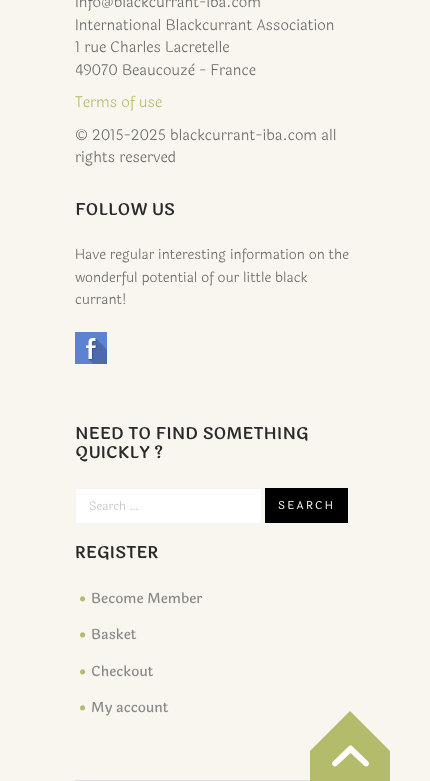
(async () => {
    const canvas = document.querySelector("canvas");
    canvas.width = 430;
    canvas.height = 781;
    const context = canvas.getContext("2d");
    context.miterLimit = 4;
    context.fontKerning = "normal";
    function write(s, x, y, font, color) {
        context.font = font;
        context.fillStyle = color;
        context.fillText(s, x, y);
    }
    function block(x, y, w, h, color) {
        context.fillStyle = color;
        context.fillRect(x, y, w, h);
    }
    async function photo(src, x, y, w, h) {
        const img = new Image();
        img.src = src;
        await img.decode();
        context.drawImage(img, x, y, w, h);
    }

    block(0, 0, 430, 781, "rgb(248, 246, 238)");
    block(75, 780, 235, 1, "rgb(221, 221, 221)");
    write("info@blackcurrant-iba.com", 75, 7, "300 15px Laila", "rgb(102, 102, 102)");
    write("International Blackcurrant Association", 75, 30, "300 15px Laila", "rgb(102, 102, 102)");
    write("1 rue Charles Lacretelle", 75, 52, "300 15px Laila", "rgb(102, 102, 102)");
    write("49070 Beaucouzè - France", 75, 75, "300 15px Laila", "rgb(102, 102, 102)");
    write("Terms of use", 75, 107, "300 15px Laila", "rgb(180, 187, 107)");
    write("© 2015-2025 blackcurrant-iba.com all", 75, 140, "300 15px Laila", "rgb(102, 102, 102)");
    write("rights reserved", 75, 162, "300 15px Laila", "rgb(102, 102, 102)");
    write("FOLLOW US", 75, 215, "600 16.4px Laila", "rgb(42, 42, 42)");
    write("Have regular interesting information on the", 75, 259, "300 14px Laila", "rgb(102, 102, 102)");
    write("wonderful potential of our little black", 75, 282, "300 14px Laila", "rgb(102, 102, 102)");
    write("currant!", 75, 304, "300 14px Laila", "rgb(102, 102, 102)");
    await photo("media/1.png", 75, 332, 32, 32);
    write("NEED TO FIND SOMETHING", 75, 439, "600 16.4px Laila", "rgb(42, 42, 42)");
    write("QUICKLY ?", 75, 458, "600 16.4px Laila", "rgb(42, 42, 42)");
    context.fillStyle = "rgb(255, 255, 255)";
    context.beginPath();
    context.rect(75.5, 488.5, 186, 35);
    context.fill();
    context.strokeStyle = "rgb(242, 245, 248)";
    context.stroke();
    write("Search …", 89, 510, "300 12px Laila", "rgb(190, 190, 190)");
    block(265, 488, 83, 35, "rgb(0, 0, 0)");
    context.letterSpacing = "2.25px";
    write("SEARCH", 278, 509, "11px Laila", "rgb(255, 255, 255)");
    context.letterSpacing = "0px";
    write("REGISTER", 75, 558, "600 16.4px Laila", "rgb(42, 42, 42)");
    await photo("media/2.png", 80, 596, 6, 6);
    write("Become Member", 91, 603, "500 14px Laila", "rgb(137, 137, 137)");
    await photo("media/2.png", 80, 632, 6, 6);
    write("Basket", 91, 639, "500 14px Laila", "rgb(137, 137, 137)");
    await photo("media/2.png", 80, 669, 6, 6);
    write("Checkout", 91, 676, "500 14px Laila", "rgb(137, 137, 137)");
    await photo("media/2.png", 80, 705, 6, 6);
    write("My account", 91, 712, "500 14px Laila", "rgb(137, 137, 137)");
    block(310, 751, 80, 30, "rgb(180, 187, 107)");
    context.beginPath();
    context.moveTo(390, 751);
    context.lineTo(310, 751);
    context.lineTo(350, 711);
    context.closePath();
    context.fill();
    await photo("media/3.png", 332, 745, 37, 22);
})();
